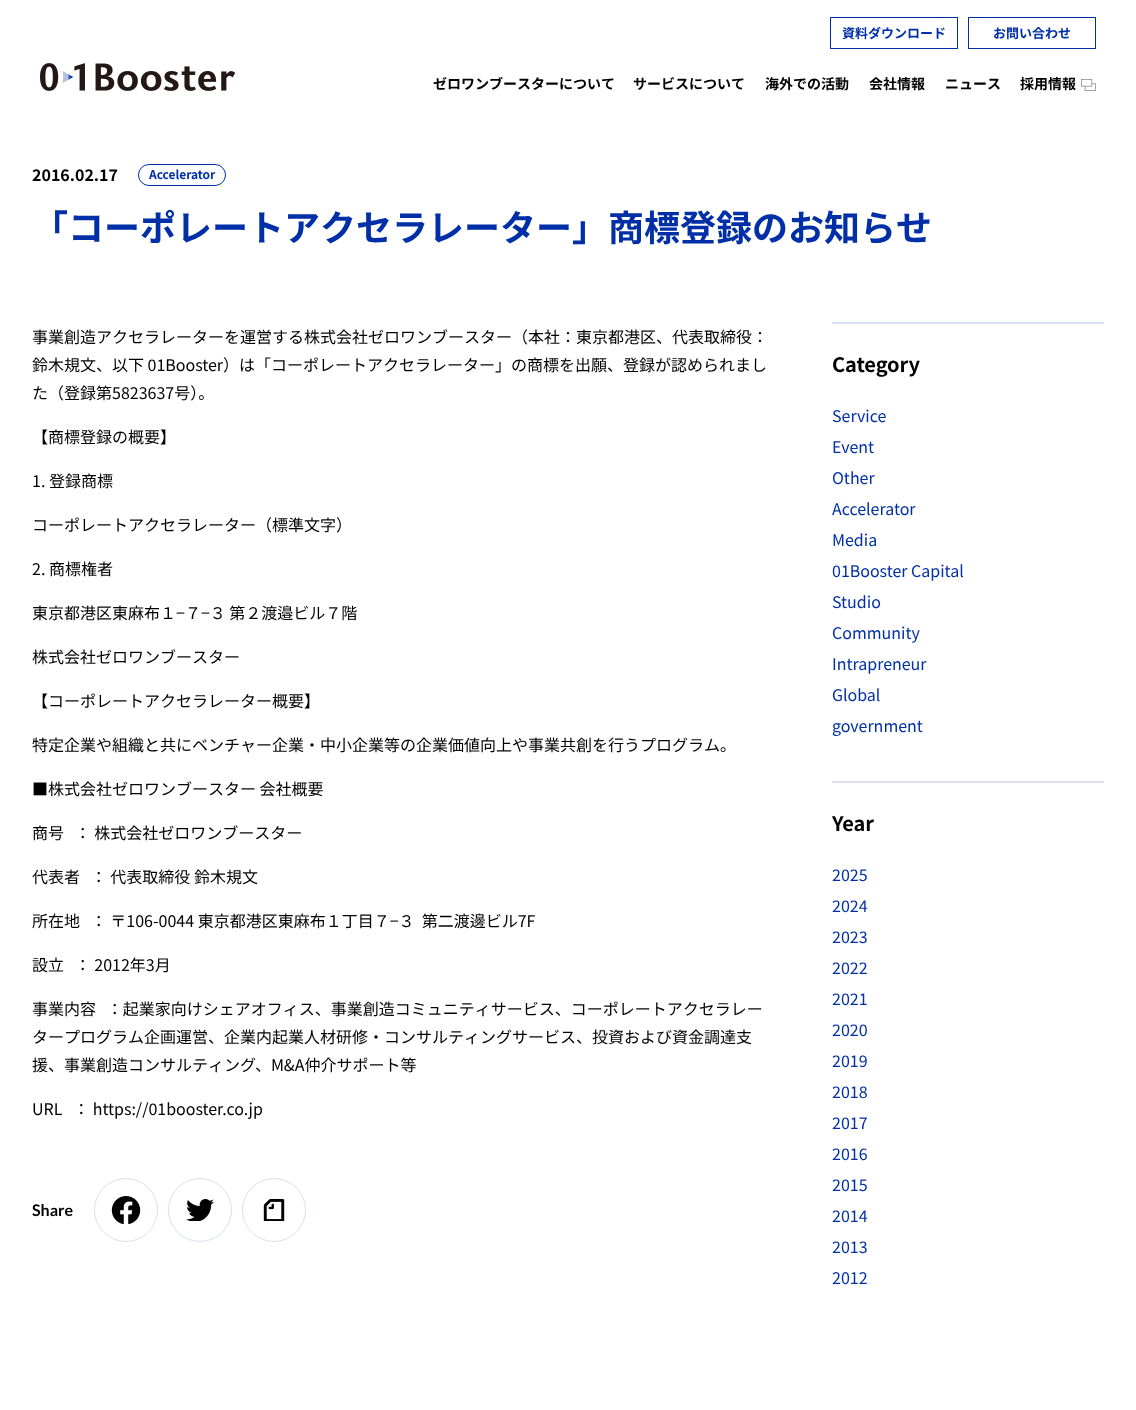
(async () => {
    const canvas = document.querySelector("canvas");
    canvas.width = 1136;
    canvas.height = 1410;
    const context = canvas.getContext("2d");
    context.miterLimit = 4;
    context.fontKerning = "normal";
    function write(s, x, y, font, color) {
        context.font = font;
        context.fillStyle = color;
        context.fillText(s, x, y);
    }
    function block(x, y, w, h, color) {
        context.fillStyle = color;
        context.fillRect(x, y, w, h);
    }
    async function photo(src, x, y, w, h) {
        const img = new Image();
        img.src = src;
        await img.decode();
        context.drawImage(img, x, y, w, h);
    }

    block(0, 0, 1136, 1410, "rgb(255, 255, 255)");
    context.strokeStyle = "rgb(0, 47, 167)";
    context.strokeRect(830.5, 17.5, 127, 31);
    write("資料ダウンロード", 842, 38, "bold 13px Noto Sans JP", "rgb(0, 47, 167)");
    context.strokeRect(968.5, 17.5, 127, 31);
    write("お問い合わせ", 993, 38, "bold 13px Noto Sans JP", "rgb(0, 47, 167)");
    await photo("media/1.png", 40, 63, 195, 28);
    write("ゼロワンブースターについて", 433, 89, "bold 14px Noto Sans JP", "rgb(0, 0, 0)");
    write("サービスについて", 633, 89, "bold 14px Noto Sans JP", "rgb(0, 0, 0)");
    write("海外での活動", 765, 89, "bold 14px Noto Sans JP", "rgb(0, 0, 0)");
    write("会社情報", 869, 89, "bold 14px Noto Sans JP", "rgb(0, 0, 0)");
    write("ニュース", 945, 89, "bold 14px Noto Sans JP", "rgb(0, 0, 0)");
    write("採用情報", 1020, 89, "bold 14px Noto Sans JP", "rgb(0, 0, 0)");
    await photo("media/2.png", 1081, 79, 15, 12);
    write("2016.02.17", 32, 181, "bold 16px Noto Sans JP", "rgb(0, 0, 0)");
    context.beginPath();
    context.roundRect(138.5, 164.5, 87, 21, 10.5);
    context.stroke();
    write("Accelerator", 149, 179, "bold 12px Noto Sans JP", "rgb(0, 47, 167)");
    write("「コーポレートアクセラレーター」商標登録のお知らせ", 32, 241, "bold 36px Noto Sans JP", "rgb(0, 47, 167)");
    write("事業創造アクセラレーターを運営する株式会社ゼロワンブースター（本社：東京都港区、代表取締役：", 32, 343, "16px Noto Sans JP", "rgb(0, 0, 0)");
    write("鈴木規文、以下 01Booster）は「コーポレートアクセラレーター」の商標を出願、登録が認められまし", 32, 371, "16px Noto Sans JP", "rgb(0, 0, 0)");
    write("た（登録第5823637号）。", 32, 399, "16px Noto Sans JP", "rgb(0, 0, 0)");
    write("【商標登録の概要】", 32, 443, "16px Noto Sans JP", "rgb(0, 0, 0)");
    write("1. 登録商標", 32, 487, "16px Noto Sans JP", "rgb(0, 0, 0)");
    write("コーポレートアクセラレーター（標準文字）", 32, 531, "16px Noto Sans JP", "rgb(0, 0, 0)");
    write("2. 商標権者", 32, 575, "16px Noto Sans JP", "rgb(0, 0, 0)");
    write("東京都港区東麻布１−７−３ 第２渡邉ビル７階", 32, 619, "16px Noto Sans JP", "rgb(0, 0, 0)");
    write("株式会社ゼロワンブースター", 32, 663, "16px Noto Sans JP", "rgb(0, 0, 0)");
    write("【コーポレートアクセラレーター概要】", 32, 707, "16px Noto Sans JP", "rgb(0, 0, 0)");
    write("特定企業や組織と共にベンチャー企業・中小企業等の企業価値向上や事業共創を行うプログラム。", 32, 751, "16px Noto Sans JP", "rgb(0, 0, 0)");
    write("■株式会社ゼロワンブースター 会社概要", 32, 795, "16px Noto Sans JP", "rgb(0, 0, 0)");
    write("商号   ： 株式会社ゼロワンブースター", 32, 839, "16px Noto Sans JP", "rgb(0, 0, 0)");
    write("代表者   ： 代表取締役 鈴木規文", 32, 883, "16px Noto Sans JP", "rgb(0, 0, 0)");
    write("所在地   ： 〒106-0044 東京都港区東麻布１丁目７−３  第二渡邊ビル7F", 32, 927, "16px Noto Sans JP", "rgb(0, 0, 0)");
    write("設立   ： 2012年3月", 32, 971, "16px Noto Sans JP", "rgb(0, 0, 0)");
    write("事業内容   ：起業家向けシェアオフィス、事業創造コミュニティサービス、コーポレートアクセラレー", 32, 1015, "16px Noto Sans JP", "rgb(0, 0, 0)");
    write("タープログラム企画運営、企業内起業人材研修・コンサルティングサービス、投資および資金調達支", 32, 1043, "16px Noto Sans JP", "rgb(0, 0, 0)");
    write("援、事業創造コンサルティング、M&A仲介サポート等", 32, 1071, "16px Noto Sans JP", "rgb(0, 0, 0)");
    write("URL   ： https://01booster.co.jp", 32, 1115, "16px Noto Sans JP", "rgb(0, 0, 0)");
    write("Share", 32, 1216, "bold 16px Lato", "rgb(0, 0, 0)");
    context.beginPath();
    context.arc(126, 1210, 31.5, 0, Math.PI * 2);
    context.strokeStyle = "rgb(217, 224, 242)";
    context.stroke();
    await photo("media/3.png", 111, 1196, 30, 28);
    context.beginPath();
    context.arc(200, 1210, 31.5, 0, Math.PI * 2);
    context.stroke();
    await photo("media/4.png", 186, 1199, 28, 22);
    context.beginPath();
    context.arc(274, 1210, 31.5, 0, Math.PI * 2);
    context.stroke();
    await photo("media/5.png", 263, 1199, 22, 22);
    block(832, 322, 272, 2, "rgb(217, 224, 242)");
    write("Category", 832, 372, "bold 20px Noto Sans JP", "rgb(0, 0, 0)");
    write("Service", 832, 422, "16px Noto Sans JP", "rgb(0, 47, 167)");
    write("Event", 832, 453, "16px Noto Sans JP", "rgb(0, 47, 167)");
    write("Other", 832, 484, "16px Noto Sans JP", "rgb(0, 47, 167)");
    write("Accelerator", 832, 515, "16px Noto Sans JP", "rgb(0, 47, 167)");
    write("Media", 832, 546, "16px Noto Sans JP", "rgb(0, 47, 167)");
    write("01Booster Capital", 832, 577, "16px Noto Sans JP", "rgb(0, 47, 167)");
    write("Studio", 832, 608, "16px Noto Sans JP", "rgb(0, 47, 167)");
    write("Community", 832, 639, "16px Noto Sans JP", "rgb(0, 47, 167)");
    write("Intrapreneur", 832, 670, "16px Noto Sans JP", "rgb(0, 47, 167)");
    write("Global", 832, 701, "16px Noto Sans JP", "rgb(0, 47, 167)");
    write("government", 832, 732, "16px Noto Sans JP", "rgb(0, 47, 167)");
    block(832, 781, 272, 2, "rgb(217, 224, 242)");
    write("Year", 832, 831, "bold 20px Noto Sans JP", "rgb(0, 0, 0)");
    write("2025", 832, 881, "16px Noto Sans JP", "rgb(0, 47, 167)");
    write("2024", 832, 912, "16px Noto Sans JP", "rgb(0, 47, 167)");
    write("2023", 832, 943, "16px Noto Sans JP", "rgb(0, 47, 167)");
    write("2022", 832, 974, "16px Noto Sans JP", "rgb(0, 47, 167)");
    write("2021", 832, 1005, "16px Noto Sans JP", "rgb(0, 47, 167)");
    write("2020", 832, 1036, "16px Noto Sans JP", "rgb(0, 47, 167)");
    write("2019", 832, 1067, "16px Noto Sans JP", "rgb(0, 47, 167)");
    write("2018", 832, 1098, "16px Noto Sans JP", "rgb(0, 47, 167)");
    write("2017", 832, 1129, "16px Noto Sans JP", "rgb(0, 47, 167)");
    write("2016", 832, 1160, "16px Noto Sans JP", "rgb(0, 47, 167)");
    write("2015", 832, 1191, "16px Noto Sans JP", "rgb(0, 47, 167)");
    write("2014", 832, 1222, "16px Noto Sans JP", "rgb(0, 47, 167)");
    write("2013", 832, 1253, "16px Noto Sans JP", "rgb(0, 47, 167)");
    write("2012", 832, 1284, "16px Noto Sans JP", "rgb(0, 47, 167)");
})();
